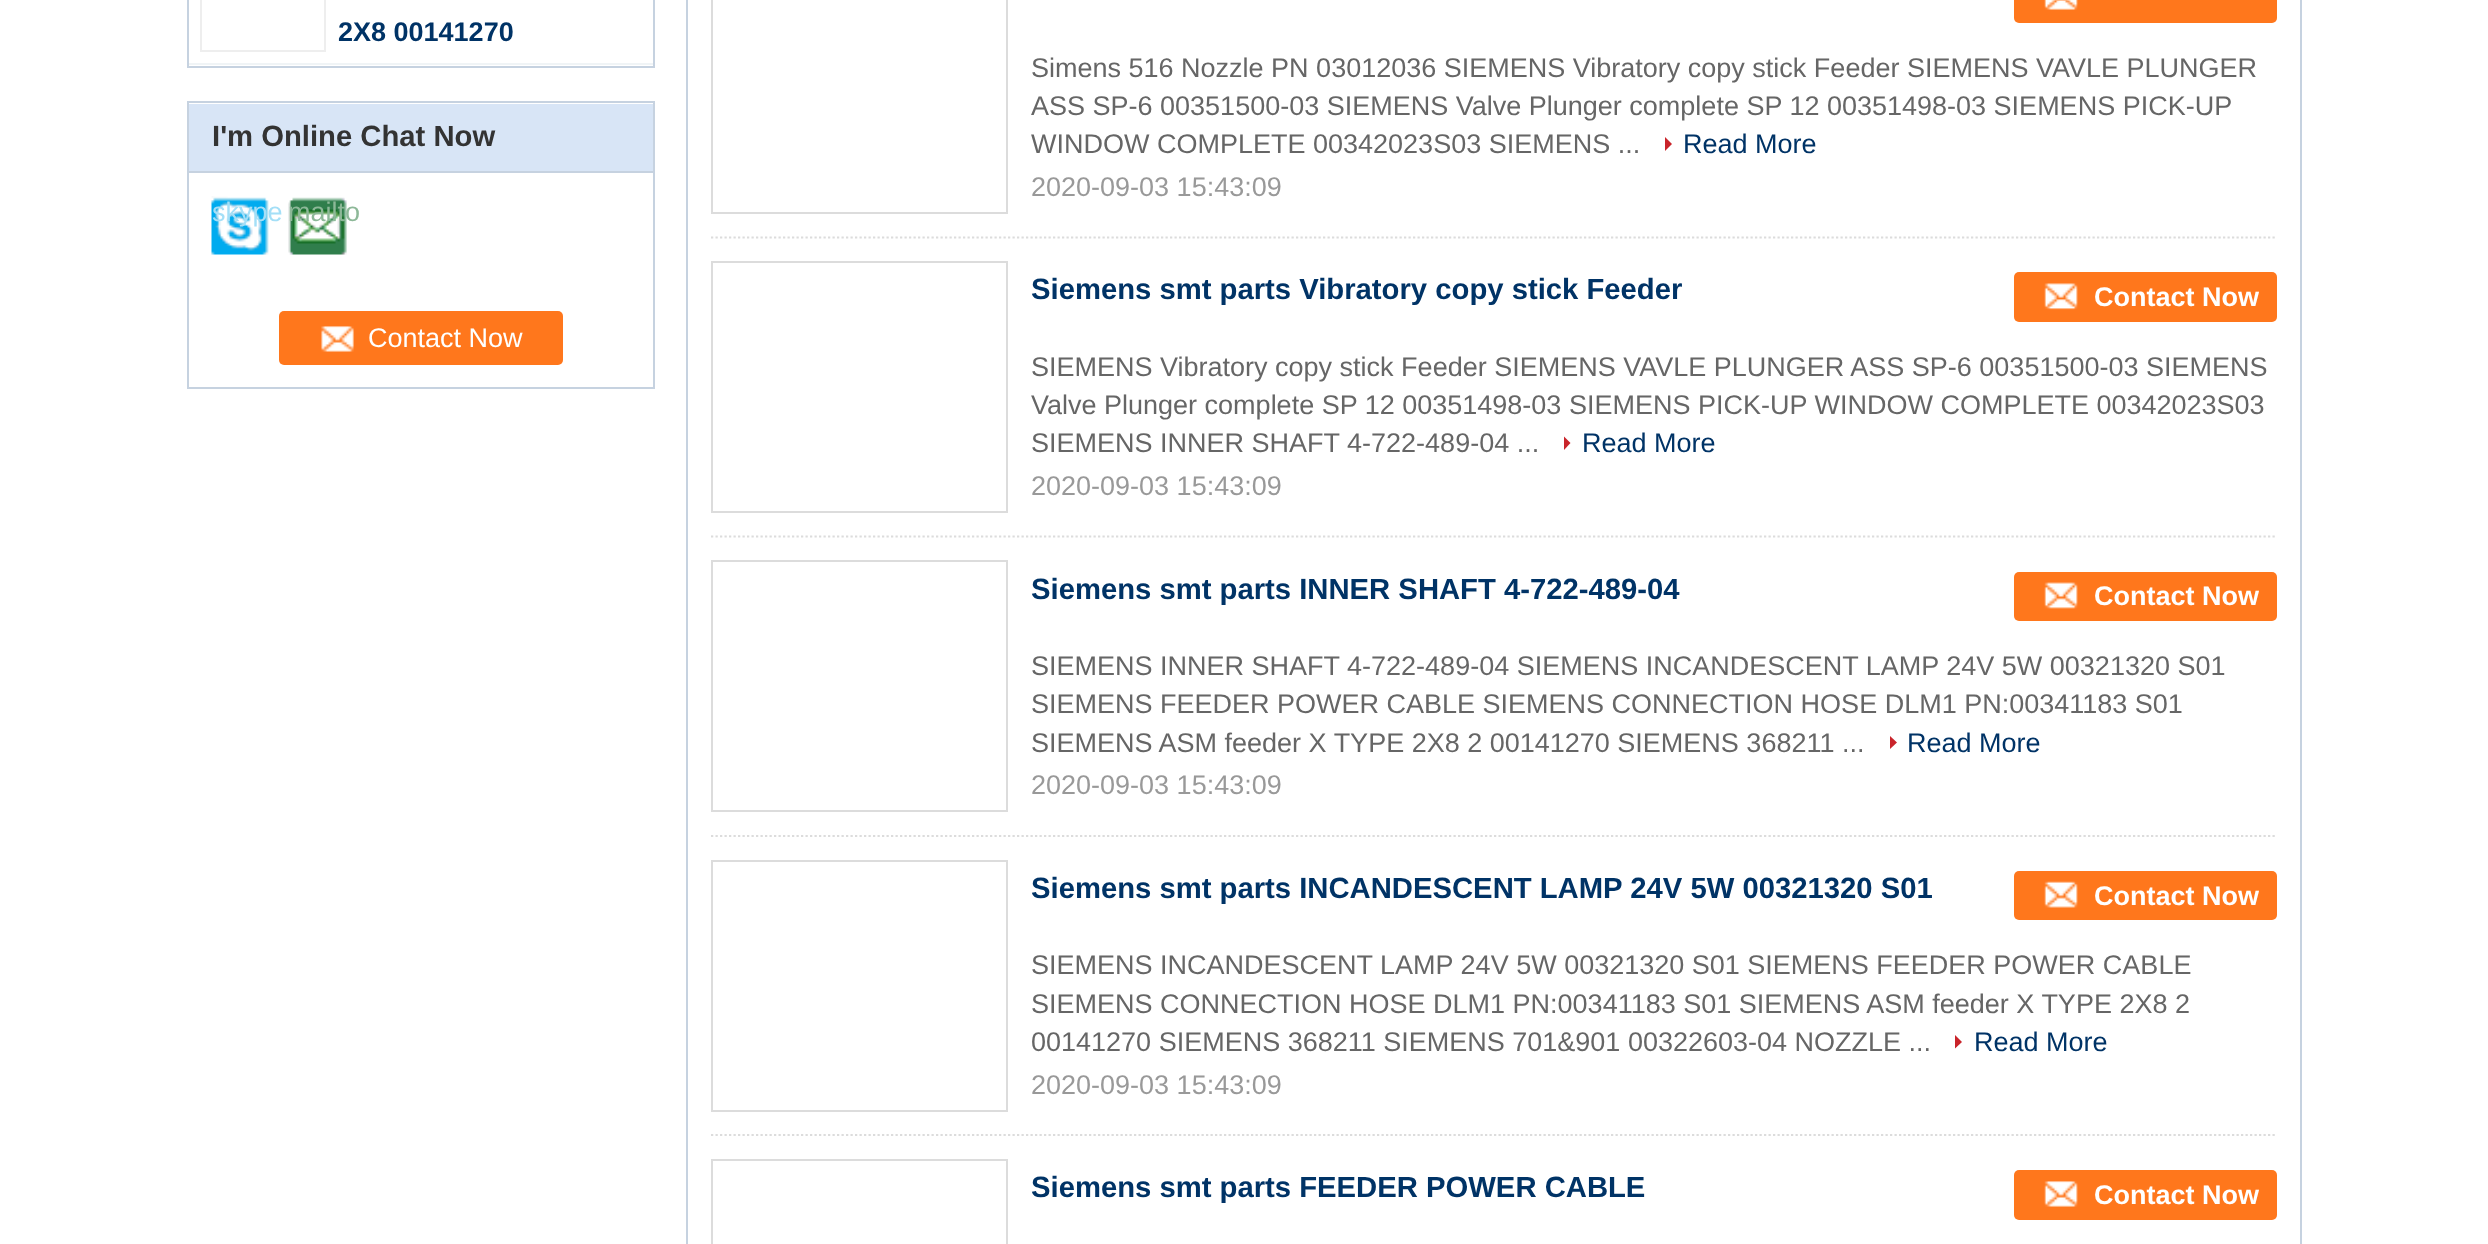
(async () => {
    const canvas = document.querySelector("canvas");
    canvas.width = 2488;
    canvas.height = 1244;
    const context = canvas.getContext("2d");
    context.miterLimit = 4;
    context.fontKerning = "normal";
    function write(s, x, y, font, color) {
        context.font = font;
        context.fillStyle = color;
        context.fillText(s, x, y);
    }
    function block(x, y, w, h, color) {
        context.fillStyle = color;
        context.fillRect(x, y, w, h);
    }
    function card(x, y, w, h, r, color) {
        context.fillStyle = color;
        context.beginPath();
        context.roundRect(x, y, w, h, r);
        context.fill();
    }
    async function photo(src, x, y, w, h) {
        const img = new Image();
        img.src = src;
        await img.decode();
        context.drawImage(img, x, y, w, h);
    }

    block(0, 0, 2488, 1244, "rgb(255, 255, 255)");
    context.strokeStyle = "rgb(198, 210, 224)";
    context.lineWidth = 2;
    context.strokeRect(188, -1, 466, 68);
    block(189, 63, 464, 2, "rgb(240, 244, 246)");
    context.strokeStyle = "rgb(238, 238, 238)";
    context.strokeRect(201, -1, 124, 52);
    write("2X8 00141270", 338, 41, "bold 27px Liberation Sans", "rgb(0, 51, 102)");
    context.strokeStyle = "rgb(198, 210, 224)";
    context.strokeRect(188, 102, 466, 286);
    block(189, 104, 464, 67, "rgb(216, 229, 246)");
    block(189, 171, 464, 2, "rgb(198, 210, 224)");
    write("I'm Online Chat Now", 212, 146, "bold 29.25px Liberation Sans", "rgb(51, 51, 51)");
    await photo("media/1.png", 211, 196, 58, 59);
    write("skype", 212, 221, "27px Liberation Sans", "rgb(164, 223, 247)");
    await photo("media/2.png", 288, 197, 59, 58);
    write("mailto", 288, 221, "27px Liberation Sans", "rgb(141, 184, 152)");
    card(279, 311, 284, 54, 5, "rgb(255, 119, 28)");
    await photo("media/3.png", 321, 326, 33, 26);
    write("Contact Now", 368, 347, "27px Liberation Sans", "rgb(255, 255, 255)");
    context.strokeRect(687, -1, 1614, 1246);
    context.beginPath();
    context.moveTo(711, 237.5);
    context.lineTo(2277, 237.5);
    context.strokeStyle = "rgb(220, 220, 220)";
    context.lineWidth = 2.2;
    context.setLineDash([2.25, 2.25]);
    context.stroke();
    context.lineWidth = 2;
    context.setLineDash([]);
    context.strokeRect(712, -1, 295, 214);
    card(2014, -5, 263, 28, 5, "rgb(255, 119, 28)");
    await photo("media/4.png", 2044, 0, 34, 10);
    write("Simens 516 Nozzle PN 03012036 SIEMENS Vibratory copy stick Feeder SIEMENS VAVLE PLUNGER", 1031, 77, "27px Liberation Sans", "rgb(102, 102, 102)");
    write("ASS SP-6 00351500-03 SIEMENS Valve Plunger complete SP 12 00351498-03 SIEMENS PICK-UP", 1031, 115, "27px Liberation Sans", "rgb(102, 102, 102)");
    write("WINDOW COMPLETE 00342023S03 SIEMENS ...", 1031, 153, "27px Liberation Sans", "rgb(102, 102, 102)");
    context.fillStyle = "rgb(201, 36, 43)";
    context.beginPath();
    context.moveTo(1665, 151);
    context.lineTo(1665, 137);
    context.lineTo(1672, 144);
    context.closePath();
    context.fill();
    write("Read More", 1683, 153, "27px Liberation Sans", "rgb(0, 51, 102)");
    write("2020-09-03 15:43:09", 1031, 196, "27px Liberation Sans", "rgb(153, 153, 153)");
    context.beginPath();
    context.moveTo(711, 536.5);
    context.lineTo(2277, 536.5);
    context.lineWidth = 2.2;
    context.setLineDash([2.25, 2.25]);
    context.stroke();
    context.lineWidth = 2;
    context.setLineDash([]);
    context.strokeRect(712, 262, 295, 250);
    write("Siemens smt parts Vibratory copy stick Feeder", 1031, 299, "bold 29.25px Liberation Sans", "rgb(0, 51, 102)");
    card(2014, 272, 263, 50, 5, "rgb(255, 119, 28)");
    await photo("media/5.png", 2044, 283, 34, 27);
    write("Contact Now", 2094, 306, "bold 27px Liberation Sans", "rgb(255, 255, 255)");
    write("SIEMENS Vibratory copy stick Feeder SIEMENS VAVLE PLUNGER ASS SP-6 00351500-03 SIEMENS", 1031, 376, "27px Liberation Sans", "rgb(102, 102, 102)");
    write("Valve Plunger complete SP 12 00351498-03 SIEMENS PICK-UP WINDOW COMPLETE 00342023S03", 1031, 414, "27px Liberation Sans", "rgb(102, 102, 102)");
    write("SIEMENS INNER SHAFT 4-722-489-04 ...", 1031, 452, "27px Liberation Sans", "rgb(102, 102, 102)");
    context.fillStyle = "rgb(201, 36, 43)";
    context.beginPath();
    context.moveTo(1564, 450);
    context.lineTo(1564, 436.5);
    context.lineTo(1570.5, 443);
    context.closePath();
    context.fill();
    write("Read More", 1582, 452, "27px Liberation Sans", "rgb(0, 51, 102)");
    write("2020-09-03 15:43:09", 1031, 495, "27px Liberation Sans", "rgb(153, 153, 153)");
    context.beginPath();
    context.moveTo(711, 836);
    context.lineTo(2277, 836);
    context.lineWidth = 2.2;
    context.setLineDash([2.25, 2.25]);
    context.stroke();
    context.lineWidth = 2;
    context.setLineDash([]);
    context.strokeRect(712, 561, 295, 250);
    write("Siemens smt parts INNER SHAFT 4-722-489-04", 1031, 599, "bold 29.25px Liberation Sans", "rgb(0, 51, 102)");
    card(2014, 572, 263, 49, 5, "rgb(255, 119, 28)");
    await photo("media/6.png", 2044, 582, 34, 27);
    write("Contact Now", 2094, 605, "bold 27px Liberation Sans", "rgb(255, 255, 255)");
    write("SIEMENS INNER SHAFT 4-722-489-04 SIEMENS INCANDESCENT LAMP 24V 5W 00321320 S01", 1031, 675, "27px Liberation Sans", "rgb(102, 102, 102)");
    write("SIEMENS FEEDER POWER CABLE SIEMENS CONNECTION HOSE DLM1 PN:00341183 S01", 1031, 713, "27px Liberation Sans", "rgb(102, 102, 102)");
    write("SIEMENS ASM feeder X TYPE 2X8 2 00141270 SIEMENS 368211 ...", 1031, 752, "27px Liberation Sans", "rgb(102, 102, 102)");
    context.fillStyle = "rgb(201, 36, 43)";
    context.beginPath();
    context.moveTo(1890, 749);
    context.lineTo(1890, 736);
    context.lineTo(1897, 742.5);
    context.closePath();
    context.fill();
    write("Read More", 1907, 752, "27px Liberation Sans", "rgb(0, 51, 102)");
    write("2020-09-03 15:43:09", 1031, 794, "27px Liberation Sans", "rgb(153, 153, 153)");
    context.beginPath();
    context.moveTo(711, 1135);
    context.lineTo(2277, 1135);
    context.lineWidth = 2.2;
    context.setLineDash([2.25, 2.25]);
    context.stroke();
    context.lineWidth = 2;
    context.setLineDash([]);
    context.strokeRect(712, 861, 295, 250);
    write("Siemens smt parts INCANDESCENT LAMP 24V 5W 00321320 S01", 1031, 898, "bold 29.25px Liberation Sans", "rgb(0, 51, 102)");
    card(2014, 871, 263, 49, 5, "rgb(255, 119, 28)");
    await photo("media/7.png", 2044, 881, 34, 27);
    write("Contact Now", 2094, 905, "bold 27px Liberation Sans", "rgb(255, 255, 255)");
    write("SIEMENS INCANDESCENT LAMP 24V 5W 00321320 S01 SIEMENS FEEDER POWER CABLE", 1031, 974, "27px Liberation Sans", "rgb(102, 102, 102)");
    write("SIEMENS CONNECTION HOSE DLM1 PN:00341183 S01 SIEMENS ASM feeder X TYPE 2X8 2", 1031, 1013, "27px Liberation Sans", "rgb(102, 102, 102)");
    write("00141270 SIEMENS 368211 SIEMENS 701&901 00322603-04 NOZZLE ...", 1031, 1051, "27px Liberation Sans", "rgb(102, 102, 102)");
    context.fillStyle = "rgb(201, 36, 43)";
    context.beginPath();
    context.moveTo(1955, 1048.5);
    context.lineTo(1955, 1035);
    context.lineTo(1962, 1042);
    context.closePath();
    context.fill();
    write("Read More", 1974, 1051, "27px Liberation Sans", "rgb(0, 51, 102)");
    write("2020-09-03 15:43:09", 1031, 1094, "27px Liberation Sans", "rgb(153, 153, 153)");
    context.strokeRect(712, 1160, 295, 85);
    write("Siemens smt parts FEEDER POWER CABLE", 1031, 1197, "bold 29.25px Liberation Sans", "rgb(0, 51, 102)");
    card(2014, 1170, 263, 50, 5, "rgb(255, 119, 28)");
    await photo("media/8.png", 2044, 1181, 34, 26);
    write("Contact Now", 2094, 1204, "bold 27px Liberation Sans", "rgb(255, 255, 255)");
})();
